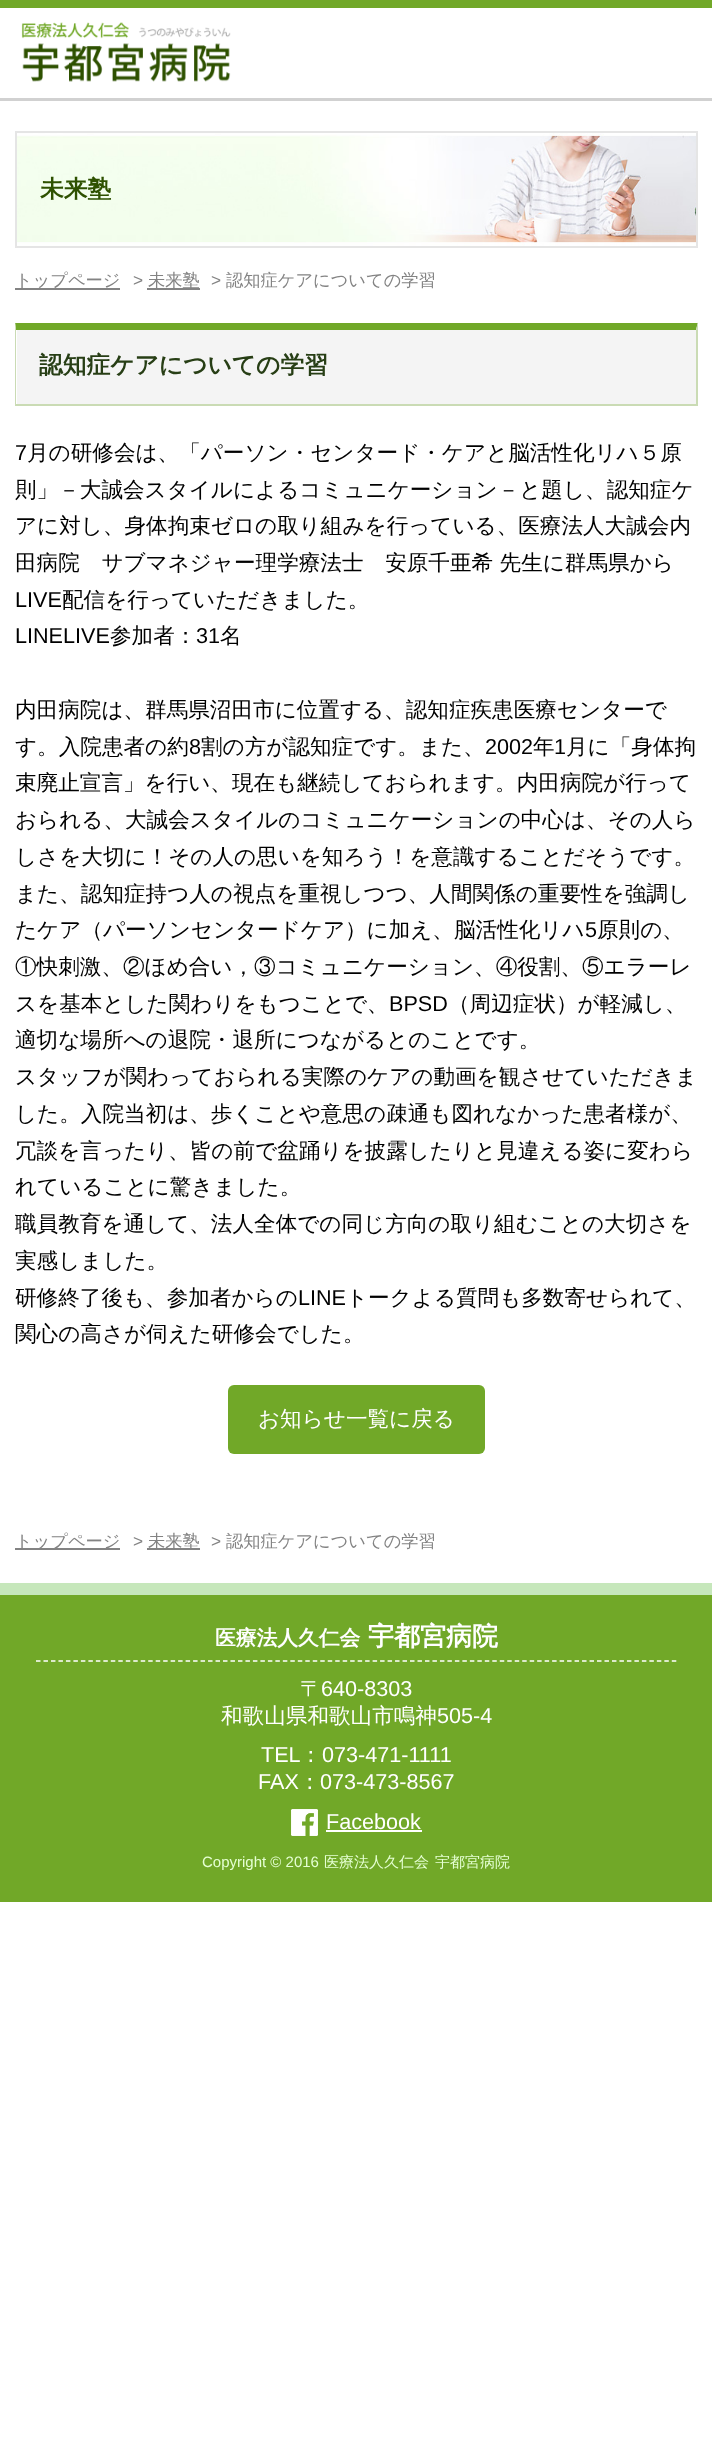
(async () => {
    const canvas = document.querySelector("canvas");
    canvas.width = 712;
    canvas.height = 2439;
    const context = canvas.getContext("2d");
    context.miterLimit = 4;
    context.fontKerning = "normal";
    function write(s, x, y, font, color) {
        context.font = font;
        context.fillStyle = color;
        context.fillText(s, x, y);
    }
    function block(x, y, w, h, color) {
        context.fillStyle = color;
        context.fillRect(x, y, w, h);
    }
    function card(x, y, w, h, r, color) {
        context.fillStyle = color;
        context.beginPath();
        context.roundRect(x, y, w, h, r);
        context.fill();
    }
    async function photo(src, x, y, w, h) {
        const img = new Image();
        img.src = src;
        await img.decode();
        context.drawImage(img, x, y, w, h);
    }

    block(0, 0, 712, 2439, "rgb(255, 255, 255)");
    block(0, 0, 712, 8, "rgb(113, 168, 40)");
    block(0, 98, 712, 3, "rgb(209, 209, 209)");
    await photo("media/1.png", 21, 22, 210, 60);
    await photo("media/2.png", 17, 133, 679, 113);
    context.strokeStyle = "rgb(229, 229, 229)";
    context.lineWidth = 2;
    context.strokeRect(16, 132, 681, 115);
    write("未来塾", 40, 197, "bold 23.75px WenQuanYi Zen Hei", "rgb(46, 81, 0)");
    block(15, 288, 105, 2, "rgb(131, 131, 131)");
    write("トップページ", 15, 286, "500 17.25px WenQuanYi Zen Hei", "rgb(131, 131, 131)");
    write(">", 133, 286, "17.25px Liberation Sans", "rgb(131, 131, 131)");
    block(147, 288, 53, 2, "rgb(131, 131, 131)");
    write("未来塾", 148, 286, "500 17.25px WenQuanYi Zen Hei", "rgb(131, 131, 131)");
    write(">", 211, 286, "17.25px Liberation Sans", "rgb(131, 131, 131)");
    write("認知症ケアについての学習", 226, 286, "500 17.25px WenQuanYi Zen Hei", "rgb(131, 131, 131)");
    block(17, 330, 679, 74, "rgb(244, 244, 244)");
    context.save();
    context.beginPath();
    context.rect(15, 323, 683, 1170);
    context.clip();
    context.fillStyle = "rgb(113, 168, 40)";
    context.beginPath();
    context.moveTo(15, 322);
    context.lineTo(698, 322);
    context.lineTo(696, 330);
    context.lineTo(16, 330);
    context.closePath();
    context.fill();
    context.restore();
    context.fillStyle = "rgb(202, 219, 180)";
    context.beginPath();
    context.moveTo(698, 322);
    context.lineTo(698, 405);
    context.lineTo(696, 404);
    context.lineTo(696, 330);
    context.closePath();
    context.fill();
    block(15, 404, 683, 2, "rgb(202, 219, 180)");
    context.beginPath();
    context.moveTo(15, 405);
    context.lineTo(15, 322);
    context.lineTo(16, 330);
    context.lineTo(16, 404);
    context.closePath();
    context.fill();
    write("認知症ケアについての学習", 39, 373, "bold 23.75px WenQuanYi Zen Hei", "rgb(39, 62, 21)");
    write("7", 15, 460, "21.6px Liberation Sans", "rgb(0, 0, 0)");
    write("月の研修会は、「パーソン・センタード・ケアと脳活性化リハ５原", 27, 460, "500 21.6px WenQuanYi Zen Hei", "rgb(0, 0, 0)");
    write("則」－大誠会スタイルによるコミュニケーション－と題し、認知症ケ", 15, 497, "500 21.6px WenQuanYi Zen Hei", "rgb(0, 0, 0)");
    write("アに対し、身体拘束ゼロの取り組みを行っている、医療法人大誠会内", 15, 533, "500 21.6px WenQuanYi Zen Hei", "rgb(0, 0, 0)");
    write("田病院　サブマネジャー理学療法士　安原千亜希 先生に群馬県から", 15, 570, "500 21.6px WenQuanYi Zen Hei", "rgb(0, 0, 0)");
    write("LIVE", 15, 607, "21.6px Liberation Sans", "rgb(0, 0, 0)");
    write("配信を行っていただきました。", 62, 607, "500 21.6px WenQuanYi Zen Hei", "rgb(0, 0, 0)");
    write("LINELIVE", 15, 643, "21.6px Liberation Sans", "rgb(0, 0, 0)");
    write("参加者：", 110, 643, "500 21.6px WenQuanYi Zen Hei", "rgb(0, 0, 0)");
    write("31", 196, 643, "21.6px Liberation Sans", "rgb(0, 0, 0)");
    write("名", 220, 643, "500 21.6px WenQuanYi Zen Hei", "rgb(0, 0, 0)");
    write("内田病院は、群馬県沼田市に位置する、認知症疾患医療センターで", 15, 717, "500 21.6px WenQuanYi Zen Hei", "rgb(0, 0, 0)");
    write("す。入院患者の約", 15, 754, "500 21.6px WenQuanYi Zen Hei", "rgb(0, 0, 0)");
    write("8", 189, 754, "21.6px Liberation Sans", "rgb(0, 0, 0)");
    write("割の方が認知症です。また、", 201, 754, "500 21.6px WenQuanYi Zen Hei", "rgb(0, 0, 0)");
    write("2002", 485, 754, "21.6px Liberation Sans", "rgb(0, 0, 0)");
    write("年", 533, 754, "500 21.6px WenQuanYi Zen Hei", "rgb(0, 0, 0)");
    write("1", 554, 754, "21.6px Liberation Sans", "rgb(0, 0, 0)");
    write("月に「身体拘", 566, 754, "500 21.6px WenQuanYi Zen Hei", "rgb(0, 0, 0)");
    write("束廃止宣言」を行い、現在も継続しておられます。内田病院が行って", 15, 790, "500 21.6px WenQuanYi Zen Hei", "rgb(0, 0, 0)");
    write("おられる、大誠会スタイルのコミュニケーションの中心は、その人ら", 15, 827, "500 21.6px WenQuanYi Zen Hei", "rgb(0, 0, 0)");
    write("しさを大切に！その人の思いを知ろう！を意識することだそうです。", 15, 864, "500 21.6px WenQuanYi Zen Hei", "rgb(0, 0, 0)");
    write("また、認知症持つ人の視点を重視しつつ、人間関係の重要性を強調し", 15, 901, "500 21.6px WenQuanYi Zen Hei", "rgb(0, 0, 0)");
    write("たケア（パーソンセンタードケア）に加え、脳活性化リハ", 15, 937, "500 21.6px WenQuanYi Zen Hei", "rgb(0, 0, 0)");
    write("5", 585, 937, "21.6px Liberation Sans", "rgb(0, 0, 0)");
    write("原則の、", 597, 937, "500 21.6px WenQuanYi Zen Hei", "rgb(0, 0, 0)");
    write("①快刺激、②ほめ合い，③コミュニケーション、④役割、⑤エラーレ", 15, 974, "500 21.6px WenQuanYi Zen Hei", "rgb(0, 0, 0)");
    write("スを基本とした関わりをもつことで、", 15, 1011, "500 21.6px WenQuanYi Zen Hei", "rgb(0, 0, 0)");
    write("BPSD", 389, 1011, "21.6px Liberation Sans", "rgb(0, 0, 0)");
    write("（周辺症状）が軽減し、", 448, 1011, "500 21.6px WenQuanYi Zen Hei", "rgb(0, 0, 0)");
    write("適切な場所への退院・退所につながるとのことです。", 15, 1047, "500 21.6px WenQuanYi Zen Hei", "rgb(0, 0, 0)");
    write("スタッフが関わっておられる実際のケアの動画を観させていただきま", 15, 1084, "500 21.6px WenQuanYi Zen Hei", "rgb(0, 0, 0)");
    write("した。入院当初は、歩くことや意思の疎通も図れなかった患者様が、", 15, 1121, "500 21.6px WenQuanYi Zen Hei", "rgb(0, 0, 0)");
    write("冗談を言ったり、皆の前で盆踊りを披露したりと見違える姿に変わら", 15, 1158, "500 21.6px WenQuanYi Zen Hei", "rgb(0, 0, 0)");
    write("れていることに驚きました。", 15, 1194, "500 21.6px WenQuanYi Zen Hei", "rgb(0, 0, 0)");
    write("職員教育を通して、法人全体での同じ方向の取り組むことの大切さを", 15, 1231, "500 21.6px WenQuanYi Zen Hei", "rgb(0, 0, 0)");
    write("実感しました。", 15, 1268, "500 21.6px WenQuanYi Zen Hei", "rgb(0, 0, 0)");
    write("研修終了後も、参加者からの", 15, 1305, "500 21.6px WenQuanYi Zen Hei", "rgb(0, 0, 0)");
    write("LINE", 298, 1305, "21.6px Liberation Sans", "rgb(0, 0, 0)");
    write("トークよる質問も多数寄せられて、", 346, 1305, "500 21.6px WenQuanYi Zen Hei", "rgb(0, 0, 0)");
    write("関心の高さが伺えた研修会でした。", 15, 1341, "500 21.6px WenQuanYi Zen Hei", "rgb(0, 0, 0)");
    card(228, 1385, 257, 69, 6, "rgb(113, 168, 40)");
    write("お知らせ一覧に戻る", 258, 1426, "500 21.6px WenQuanYi Zen Hei", "rgb(255, 255, 255)");
    block(15, 1548, 105, 2, "rgb(131, 131, 131)");
    write("トップページ", 15, 1547, "500 17.25px WenQuanYi Zen Hei", "rgb(131, 131, 131)");
    write(">", 133, 1547, "17.25px Liberation Sans", "rgb(131, 131, 131)");
    block(147, 1548, 53, 2, "rgb(131, 131, 131)");
    write("未来塾", 148, 1547, "500 17.25px WenQuanYi Zen Hei", "rgb(131, 131, 131)");
    write(">", 211, 1547, "17.25px Liberation Sans", "rgb(131, 131, 131)");
    write("認知症ケアについての学習", 226, 1547, "500 17.25px WenQuanYi Zen Hei", "rgb(131, 131, 131)");
    block(0, 1595, 712, 307, "rgb(113, 168, 40)");
    block(0, 1583, 712, 12, "rgb(198, 231, 187)");
    context.beginPath();
    context.moveTo(36, 1661);
    context.lineTo(676.5, 1661);
    context.strokeStyle = "rgb(255, 255, 255)";
    context.lineWidth = 1.5;
    context.setLineDash([4.5, 2.98]);
    context.stroke();
    write("医療法人久仁会", 215, 1645, "bold 20.75px WenQuanYi Zen Hei", "rgb(255, 255, 255)");
    write("宇都宮病院", 368, 1645, "bold 26px WenQuanYi Zen Hei", "rgb(255, 255, 255)");
    write("〒", 300, 1696, "500 21.6px WenQuanYi Zen Hei", "rgb(255, 255, 255)");
    write("640-8303", 321, 1696, "21.6px Liberation Sans", "rgb(255, 255, 255)");
    write("和歌山県和歌山市鳴神", 221, 1723, "500 21.6px WenQuanYi Zen Hei", "rgb(255, 255, 255)");
    write("505-4", 437, 1723, "21.6px Liberation Sans", "rgb(255, 255, 255)");
    write("TEL", 261, 1762, "21.6px Liberation Sans", "rgb(255, 255, 255)");
    write("：", 300, 1762, "500 21.6px WenQuanYi Zen Hei", "rgb(255, 255, 255)");
    write("073-471-1111", 322, 1762, "21.6px Liberation Sans", "rgb(255, 255, 255)");
    write("FAX", 258, 1789, "21.6px Liberation Sans", "rgb(255, 255, 255)");
    write("：", 299, 1789, "500 21.6px WenQuanYi Zen Hei", "rgb(255, 255, 255)");
    write("073-473-8567", 320, 1789, "21.6px Liberation Sans", "rgb(255, 255, 255)");
    await photo("media/3.png", 291, 1809, 27, 27);
    write("Facebook", 326, 1829, "21.6px Liberation Sans", "rgb(255, 255, 255)");
    block(326, 1830, 96, 2, "rgb(255, 255, 255)");
    write("Copyright © 2016", 202, 1867, "15px Liberation Sans", "rgb(229, 255, 211)");
    write("医療法人久仁会", 324, 1867, "500 15px WenQuanYi Zen Hei", "rgb(229, 255, 211)");
    write("宇都宮病院", 435, 1867, "500 15px WenQuanYi Zen Hei", "rgb(229, 255, 211)");
})();
